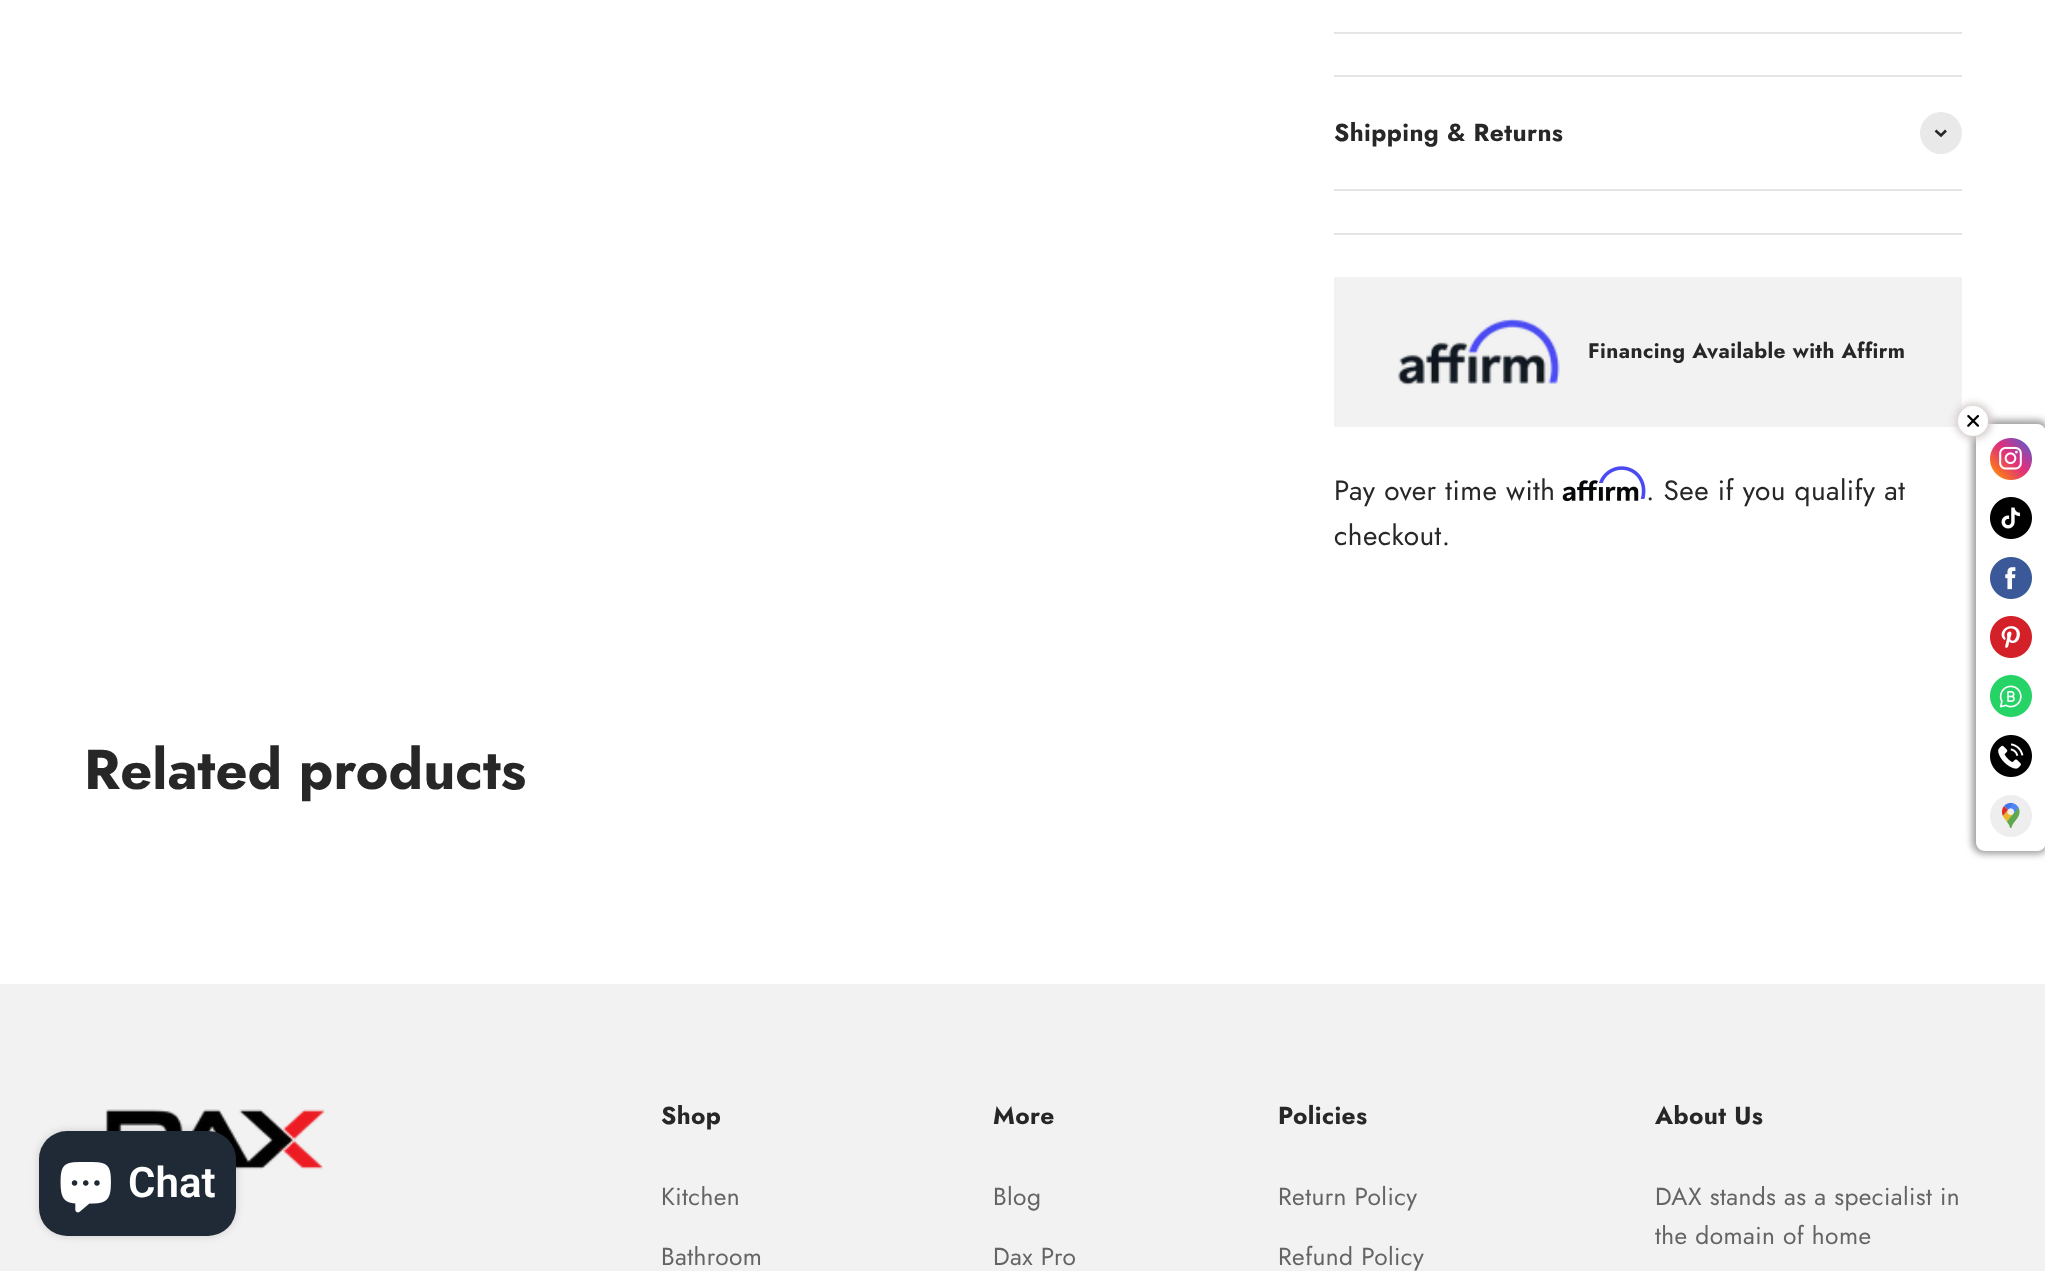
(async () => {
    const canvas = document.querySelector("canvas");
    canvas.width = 2045;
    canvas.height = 1271;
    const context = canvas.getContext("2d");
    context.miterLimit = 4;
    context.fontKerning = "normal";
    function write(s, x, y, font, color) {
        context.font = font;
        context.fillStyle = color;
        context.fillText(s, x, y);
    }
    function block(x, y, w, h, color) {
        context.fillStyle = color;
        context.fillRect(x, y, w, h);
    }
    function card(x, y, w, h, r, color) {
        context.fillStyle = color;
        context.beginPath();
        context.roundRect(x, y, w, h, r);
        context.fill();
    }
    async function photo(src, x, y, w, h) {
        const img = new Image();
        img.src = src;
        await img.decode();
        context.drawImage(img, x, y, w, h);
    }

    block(0, 0, 2045, 1271, "rgb(255, 255, 255)");
    block(1334, 32, 628, 2, "rgb(229, 229, 229)");
    block(1334, 75, 628, 2, "rgb(229, 229, 229)");
    block(1334, 189, 628, 2, "rgb(229, 229, 229)");
    context.letterSpacing = "0.4px";
    write("Shipping & Returns", 1334, 141, "bold 24.5px Jost", "rgb(39, 39, 39)");
    context.fillStyle = "rgb(233, 233, 233)";
    context.beginPath();
    context.arc(1941, 133, 21, 0, Math.PI * 2);
    context.fill();
    context.beginPath();
    context.moveTo(1935.5, 130.5);
    context.lineTo(1941, 135.5);
    context.lineTo(1946, 130.5);
    context.strokeStyle = "rgb(39, 39, 39)";
    context.lineWidth = 2.6;
    context.stroke();
    block(1334, 233, 628, 2, "rgb(229, 229, 229)");
    block(1334, 277, 628, 150, "rgb(242, 242, 242)");
    await photo("media/1.png", 1397, 318, 163, 68);
    write("Financing Available with Affirm", 1588, 358, "bold 21px Jost", "rgb(39, 39, 39)");
    write("Pay over time with", 1334, 500, "28px Jost", "rgb(39, 39, 39)");
    await photo("media/3.png", 1562, 480, 77, 22);
    await photo("media/2.png", 1599, 466, 47, 33);
    write(". See if you qualify at", 1646, 500, "28px Jost", "rgb(39, 39, 39)");
    write("checkout.", 1334, 545, "28px Jost", "rgb(39, 39, 39)");
    context.letterSpacing = "0px";
    write("Related products", 84, 789, "bold 56px Jost", "rgb(39, 39, 39)");
    block(0, 984, 2045, 287, "rgb(242, 242, 242)");
    await photo("media/4.png", 105, 1109, 220, 61);
    context.letterSpacing = "0.4px";
    write("Shop", 661, 1124, "bold 24.5px Jost", "rgb(39, 39, 39)");
    write("Kitchen", 661, 1205, "24.5px Jost", "rgb(100, 100, 100)");
    write("Bathroom", 661, 1265, "24.5px Jost", "rgb(100, 100, 100)");
    write("More", 993, 1124, "bold 24.5px Jost", "rgb(39, 39, 39)");
    write("Blog", 993, 1205, "24.5px Jost", "rgb(100, 100, 100)");
    write("Dax Pro", 993, 1265, "24.5px Jost", "rgb(100, 100, 100)");
    write("Policies", 1278, 1124, "bold 24.5px Jost", "rgb(39, 39, 39)");
    write("Return Policy", 1278, 1205, "24.5px Jost", "rgb(100, 100, 100)");
    write("Refund Policy", 1278, 1265, "24.5px Jost", "rgb(100, 100, 100)");
    write("About Us", 1655, 1124, "bold 24.5px Jost", "rgb(39, 39, 39)");
    write("DAX stands as a specialist in", 1655, 1205, "24.5px Jost", "rgb(100, 100, 100)");
    write("the domain of home", 1655, 1244, "24.5px Jost", "rgb(100, 100, 100)");
    context.save();
    context.beginPath();
    context.moveTo(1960, 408);
    context.lineTo(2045, 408);
    context.lineTo(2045, 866);
    context.lineTo(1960, 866);
    context.closePath();
    context.moveTo(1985, 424);
    context.lineTo(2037, 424);
    context.bezierCurveTo(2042, 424, 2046, 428, 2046, 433);
    context.lineTo(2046, 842);
    context.bezierCurveTo(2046, 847, 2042, 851, 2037, 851);
    context.lineTo(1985, 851);
    context.bezierCurveTo(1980, 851, 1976, 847, 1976, 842);
    context.lineTo(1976, 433);
    context.bezierCurveTo(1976, 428, 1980, 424, 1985, 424);
    context.closePath();
    context.clip("evenodd");
    context.fillStyle = "rgb(158, 158, 158)";
    context.filter = "blur(3.5px)";
    context.beginPath();
    context.roundRect(1972, 420, 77, 434, 12);
    context.fill();
    context.filter = "none";
    context.restore();
    await photo("media/6.png", 1990, 438, 42, 42);
    context.fillStyle = "rgb(215, 206, 206)";
    context.filter = "blur(3.5px)";
    context.beginPath();
    context.roundRect(1955, 403, 37, 36, 18);
    context.fill();
    context.filter = "none";
    context.fillStyle = "rgb(255, 255, 255)";
    context.beginPath();
    context.arc(1973, 421, 15, 0, Math.PI * 2);
    context.fill();
    await photo("media/5.png", 1967, 415, 13, 12);
    await photo("media/7.png", 1990, 497, 42, 42);
    await photo("media/8.png", 1990, 557, 42, 42);
    await photo("media/9.png", 1990, 616, 42, 42);
    await photo("media/10.png", 1990, 675, 42, 42);
    await photo("media/11.png", 1990, 735, 42, 42);
    await photo("media/12.png", 1990, 795, 42, 42);
    context.fillStyle = "rgba(0, 0, 0, 0.15)";
    context.filter = "blur(4.5px)";
    context.beginPath();
    context.roundRect(39, 1131, 197, 105, 28);
    context.fill();
    context.filter = "none";
    card(39, 1131, 197, 105, 28, "rgb(32, 42, 54)");
    await photo("media/13.png", 60, 1162, 51, 51);
    context.letterSpacing = "0px";
    write("Chat", 128, 1197, "600 42px Roboto", "rgb(255, 255, 255)");
})();
